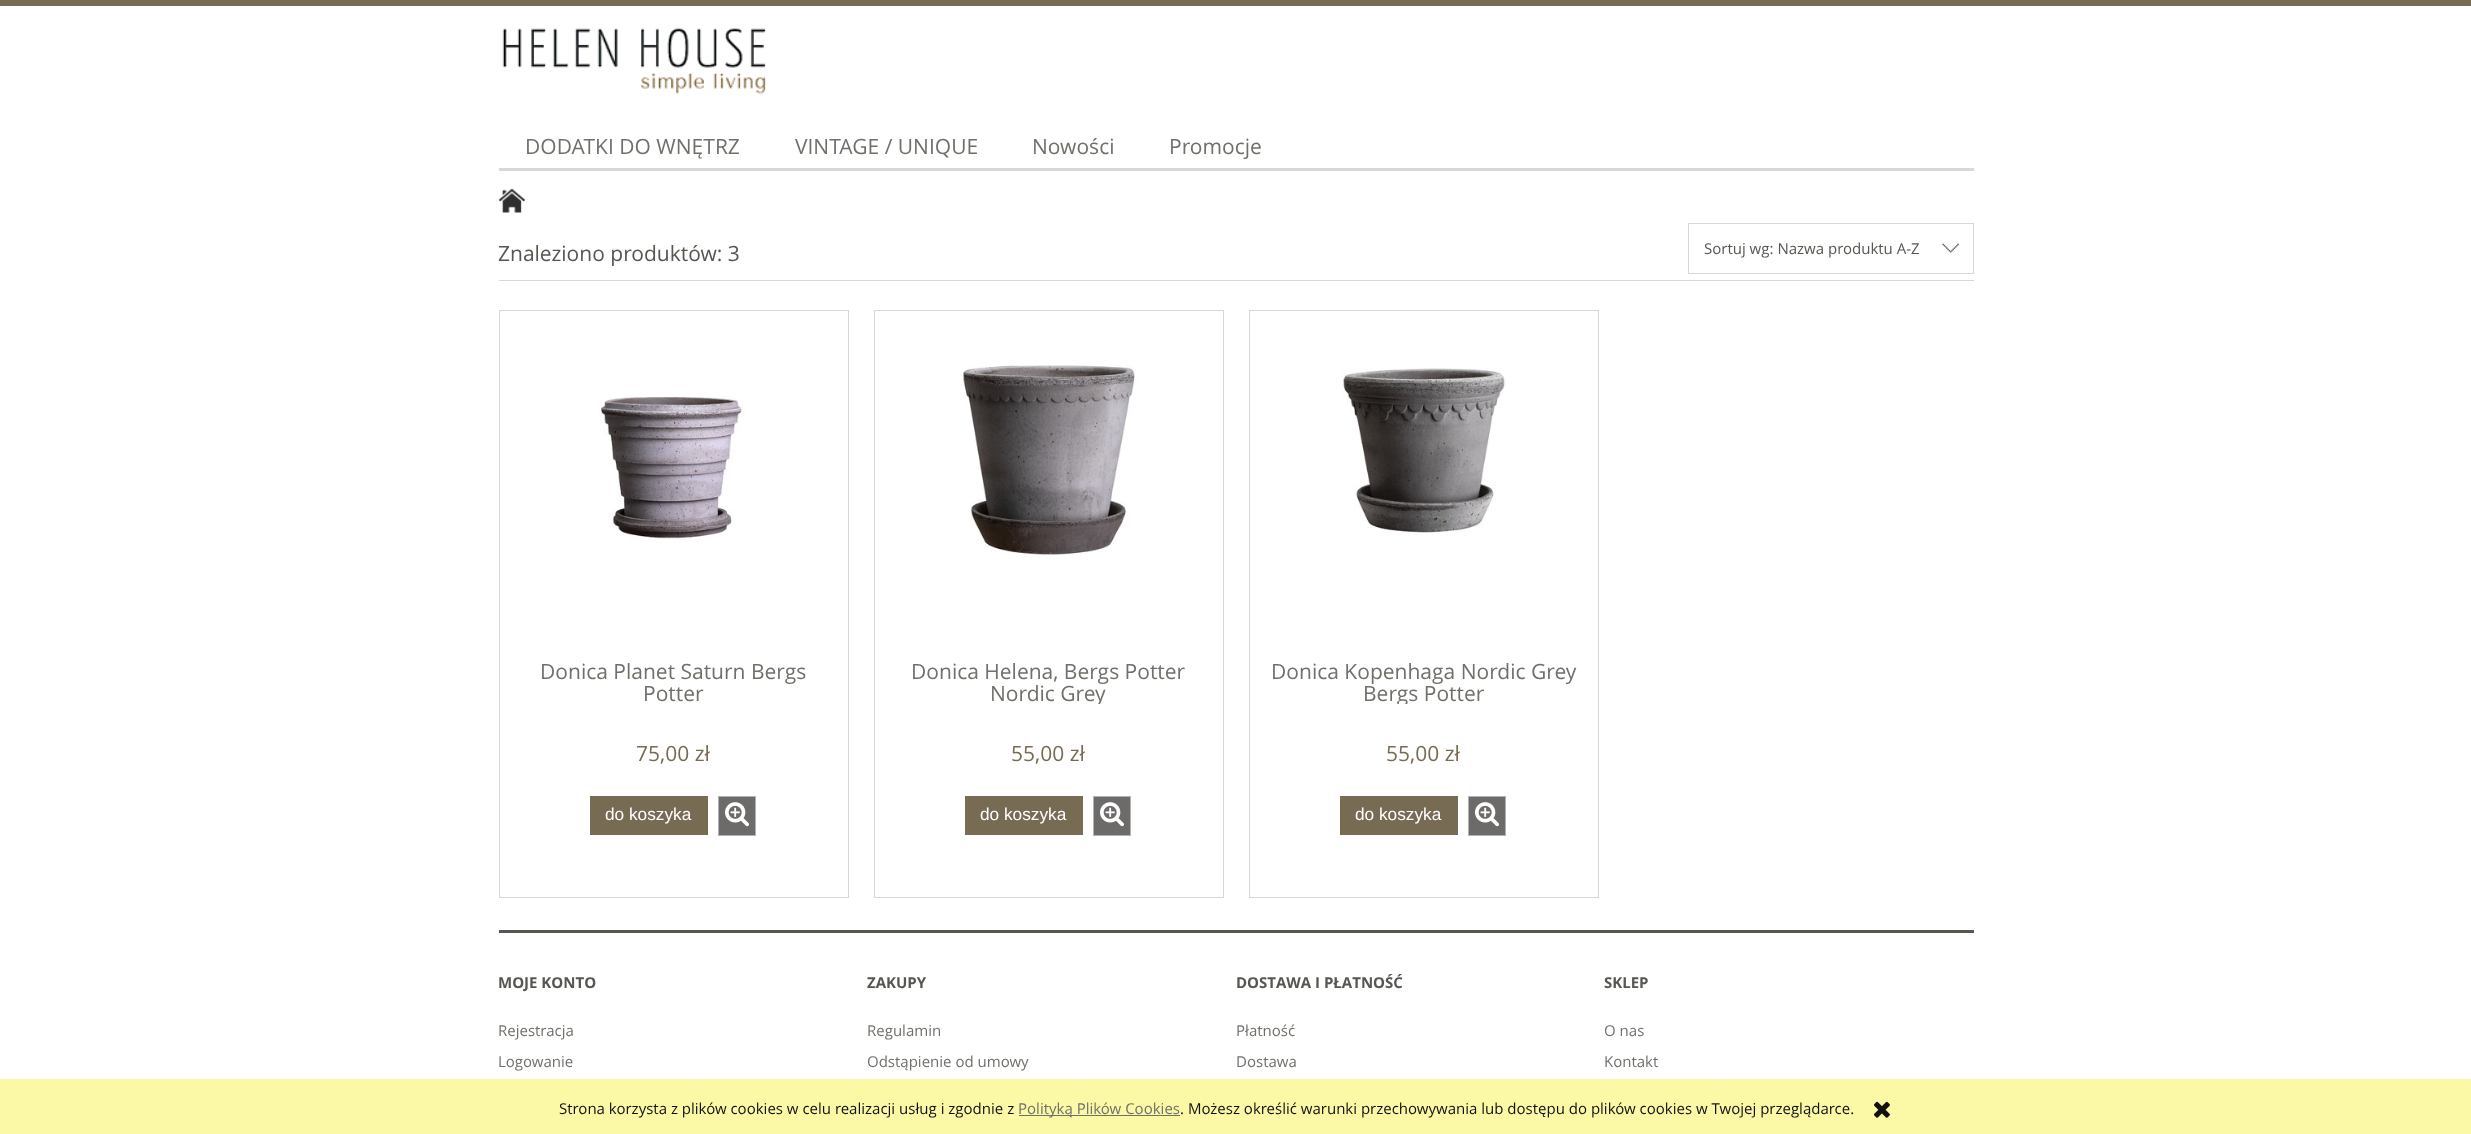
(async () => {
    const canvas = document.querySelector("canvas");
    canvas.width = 2471;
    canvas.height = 1134;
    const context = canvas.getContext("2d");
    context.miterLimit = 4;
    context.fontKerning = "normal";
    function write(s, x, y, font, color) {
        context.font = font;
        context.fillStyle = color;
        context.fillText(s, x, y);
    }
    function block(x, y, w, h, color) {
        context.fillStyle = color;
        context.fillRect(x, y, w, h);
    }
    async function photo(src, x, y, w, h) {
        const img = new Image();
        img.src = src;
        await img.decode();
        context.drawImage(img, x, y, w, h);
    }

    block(0, 0, 2471, 1134, "rgb(255, 255, 255)");
    block(0, 0, 2471, 6, "rgb(120, 107, 83)");
    await photo("media/1.png", 502, 27, 264, 67);
    block(499, 168, 1475, 3, "rgb(216, 216, 216)");
    write("DODATKI DO WNĘTRZ", 525, 154, "21px Open Sans", "rgb(112, 112, 107)");
    write("VINTAGE / UNIQUE", 795, 154, "21px Open Sans", "rgb(112, 112, 107)");
    write("Nowości", 1032, 154, "21px Open Sans", "rgb(112, 112, 107)");
    write("Promocje", 1169, 154, "21px Open Sans", "rgb(112, 112, 107)");
    await photo("media/2.png", 498, 188, 27, 25);
    block(499, 280, 1475, 1, "rgb(216, 216, 216)");
    write("Znaleziono produktów: 3", 498, 261, "21px Open Sans", "rgb(87, 86, 81)");
    await photo("media/3.png", 1942, 243, 17, 10);
    context.strokeStyle = "rgb(216, 216, 216)";
    context.strokeRect(1688.5, 223.5, 285, 50);
    write("Sortuj wg: Nazwa produktu A-Z", 1704, 254, "15px Open Sans", "rgb(87, 86, 81)");
    context.strokeRect(499.5, 310.5, 349, 587);
    await photo("media/4.png", 599, 397, 147, 143);
    write("Donica Planet Saturn Bergs", 540, 679, "21px Open Sans", "rgb(112, 112, 107)");
    write("Potter", 643, 701, "21px Open Sans", "rgb(112, 112, 107)");
    write("75,00 zł", 636, 761, "21px Open Sans", "rgb(120, 107, 83)");
    block(590, 796, 118, 39, "rgb(120, 107, 83)");
    write("do koszyka", 605, 820, "17.25px Liberation Sans", "rgb(255, 255, 255)");
    context.fillStyle = "rgb(109, 106, 106)";
    context.beginPath();
    context.rect(718.5, 796.5, 37, 39);
    context.fill();
    context.strokeStyle = "rgb(177, 177, 177)";
    context.stroke();
    await photo("media/5.png", 725, 802, 24, 25);
    context.strokeStyle = "rgb(216, 216, 216)";
    context.strokeRect(874.5, 310.5, 349, 587);
    await photo("media/6.png", 963, 365, 176, 190);
    write("Donica Helena, Bergs Potter", 911, 679, "21px Open Sans", "rgb(112, 112, 107)");
    context.save();
    context.beginPath();
    context.rect(890, 639, 318, 65);
    context.clip();
    write("Nordic Grey", 990, 701, "21px Open Sans", "rgb(112, 112, 107)");
    context.restore();
    write("55,00 zł", 1011, 761, "21px Open Sans", "rgb(120, 107, 83)");
    block(965, 796, 118, 39, "rgb(120, 107, 83)");
    write("do koszyka", 980, 820, "17.25px Liberation Sans", "rgb(255, 255, 255)");
    context.fillStyle = "rgb(109, 106, 106)";
    context.beginPath();
    context.rect(1093.5, 796.5, 37, 39);
    context.fill();
    context.strokeStyle = "rgb(177, 177, 177)";
    context.stroke();
    await photo("media/5.png", 1100, 802, 24, 25);
    context.strokeStyle = "rgb(216, 216, 216)";
    context.strokeRect(1249.5, 310.5, 349, 587);
    await photo("media/7.png", 1342, 368, 164, 165);
    write("Donica Kopenhaga Nordic Grey", 1271, 679, "21px Open Sans", "rgb(112, 112, 107)");
    context.save();
    context.beginPath();
    context.rect(1265, 639, 318, 65);
    context.clip();
    write("Bergs Potter", 1363, 701, "21px Open Sans", "rgb(112, 112, 107)");
    context.restore();
    write("55,00 zł", 1386, 761, "21px Open Sans", "rgb(120, 107, 83)");
    block(1340, 796, 118, 39, "rgb(120, 107, 83)");
    write("do koszyka", 1355, 820, "17.25px Liberation Sans", "rgb(255, 255, 255)");
    context.fillStyle = "rgb(109, 106, 106)";
    context.beginPath();
    context.rect(1468.5, 796.5, 37, 39);
    context.fill();
    context.strokeStyle = "rgb(177, 177, 177)";
    context.stroke();
    await photo("media/5.png", 1475, 802, 24, 25);
    block(499, 930, 1475, 3, "rgb(87, 86, 81)");
    write("MOJE KONTO", 498, 988, "bold 15px Open Sans", "rgb(87, 86, 81)");
    write("Rejestracja", 498, 1036, "15px Open Sans", "rgb(112, 112, 107)");
    write("Logowanie", 498, 1067, "15px Open Sans", "rgb(112, 112, 107)");
    write("ZAKUPY", 867, 988, "bold 15px Open Sans", "rgb(87, 86, 81)");
    write("Regulamin", 867, 1036, "15px Open Sans", "rgb(112, 112, 107)");
    write("Odstąpienie od umowy", 867, 1067, "15px Open Sans", "rgb(112, 112, 107)");
    write("DOSTAWA I PŁATNOŚĆ", 1236, 988, "bold 15px Open Sans", "rgb(87, 86, 81)");
    write("Płatność", 1236, 1036, "15px Open Sans", "rgb(112, 112, 107)");
    write("Dostawa", 1236, 1067, "15px Open Sans", "rgb(112, 112, 107)");
    write("SKLEP", 1604, 988, "bold 15px Open Sans", "rgb(87, 86, 81)");
    write("O nas", 1604, 1036, "15px Open Sans", "rgb(112, 112, 107)");
    write("Kontakt", 1604, 1067, "15px Open Sans", "rgb(112, 112, 107)");
    block(0, 1079, 2471, 55, "rgb(252, 249, 166)");
    write("Strona korzysta z plików cookies w celu realizacji usług i zgodnie z", 559, 1114, "15px Open Sans", "rgb(17, 17, 17)");
    block(1019, 1115, 161, 1, "rgb(112, 112, 107)");
    write("Polityką Plików Cookies", 1018, 1114, "15px Open Sans", "rgb(112, 112, 107)");
    write(". Możesz określić warunki przechowywania lub dostępu do plików cookies w Twojej przeglądarce.", 1180, 1114, "15px Open Sans", "rgb(17, 17, 17)");
    await photo("media/8.png", 1874, 1101, 16, 17);
})();
